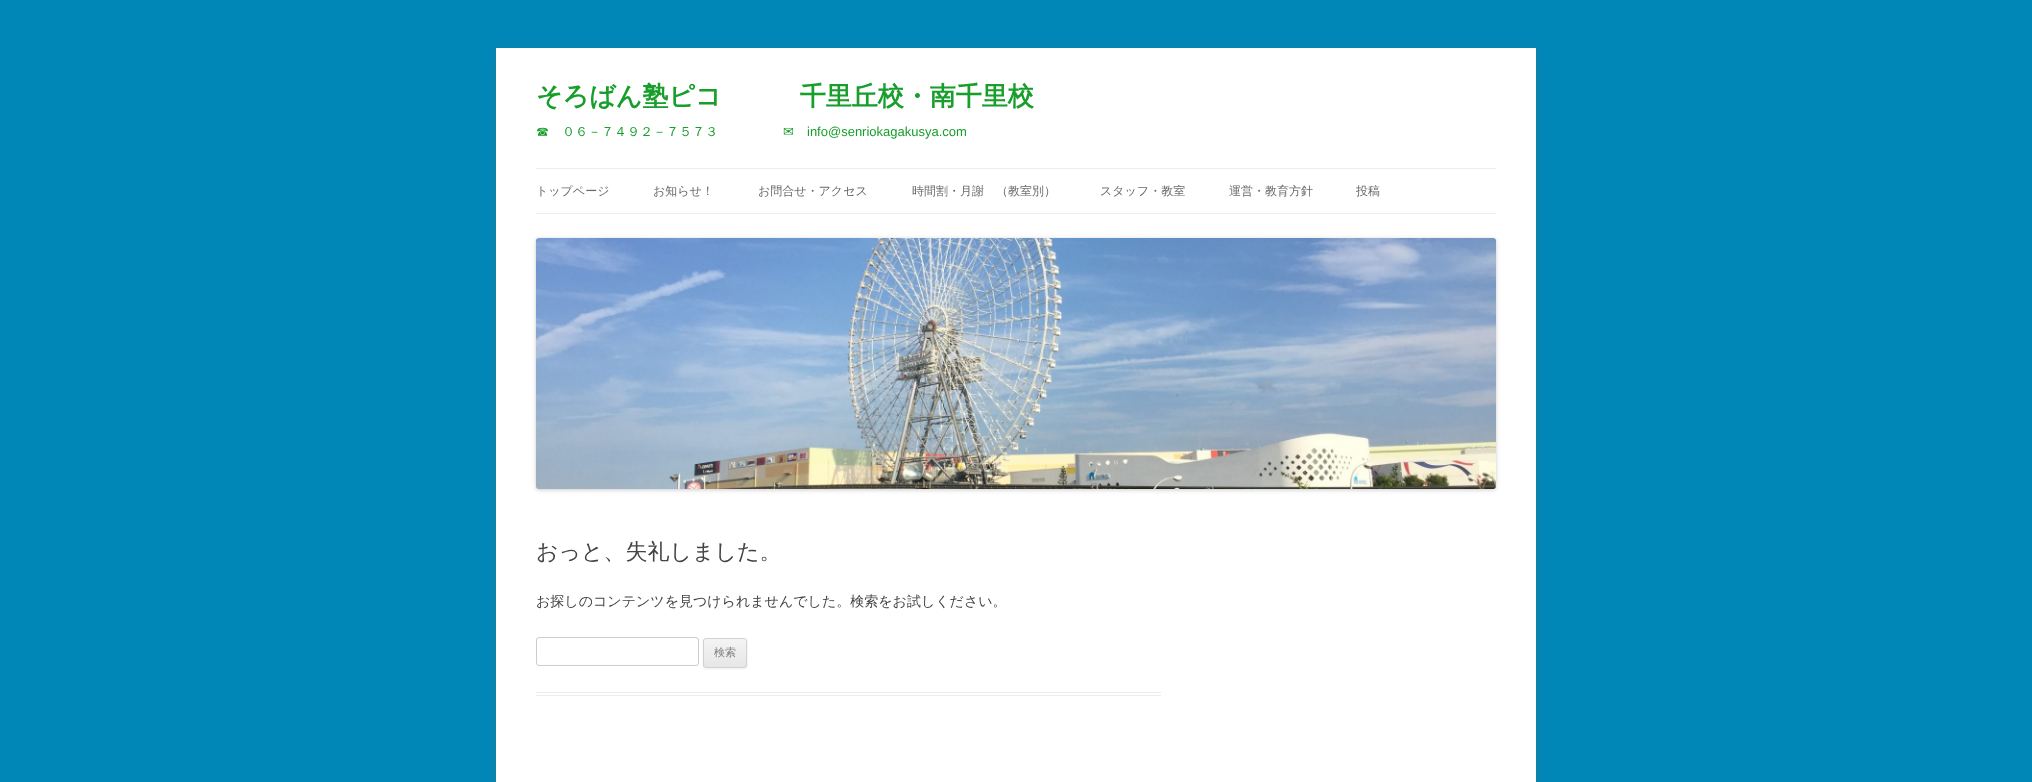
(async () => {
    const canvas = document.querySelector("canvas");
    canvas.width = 2032;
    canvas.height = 782;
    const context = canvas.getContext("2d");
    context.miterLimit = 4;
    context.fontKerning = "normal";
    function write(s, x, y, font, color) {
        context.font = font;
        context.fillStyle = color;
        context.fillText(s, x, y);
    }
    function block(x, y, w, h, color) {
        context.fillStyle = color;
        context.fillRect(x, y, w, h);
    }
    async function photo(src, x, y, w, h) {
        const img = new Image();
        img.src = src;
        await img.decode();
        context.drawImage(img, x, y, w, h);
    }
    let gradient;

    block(0, 0, 2032, 782, "rgb(1, 135, 183)");
    context.fillStyle = "rgba(100, 100, 100, 0.3)";
    context.filter = "blur(3px)";
    context.beginPath();
    context.rect(496, 50, 1040, 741);
    context.fill();
    context.filter = "none";
    block(496, 48, 1040, 734, "rgb(255, 255, 255)");
    write("そろばん塾ピコ　　　千里丘校・南千里校", 536, 105, "bold 26px WenQuanYi Zen Hei", "rgb(23, 158, 43)");
    write("☎　０６－７４９２－７５７３", 536, 136, "500 13px WenQuanYi Zen Hei", "rgb(23, 158, 43)");
    write("✉", 783, 136, "13px DejaVu Sans", "rgb(23, 158, 43)");
    write("info@senriokagakusya.com", 807, 136, "13px Liberation Sans", "rgb(23, 158, 43)");
    block(536, 168, 960, 1, "rgb(237, 237, 237)");
    block(536, 213, 960, 1, "rgb(237, 237, 237)");
    write("トップページ", 536, 195, "500 12px WenQuanYi Zen Hei", "rgb(106, 106, 106)");
    write("お知らせ！", 653, 195, "500 12px WenQuanYi Zen Hei", "rgb(106, 106, 106)");
    write("お問合せ・アクセス", 758, 195, "500 12px WenQuanYi Zen Hei", "rgb(106, 106, 106)");
    write("時間割・月謝　（教室別）", 912, 195, "500 12px WenQuanYi Zen Hei", "rgb(106, 106, 106)");
    write("スタッフ・教室", 1100, 195, "500 12px WenQuanYi Zen Hei", "rgb(106, 106, 106)");
    write("運営・教育方針", 1229, 195, "500 12px WenQuanYi Zen Hei", "rgb(106, 106, 106)");
    write("投稿", 1356, 195, "500 12px WenQuanYi Zen Hei", "rgb(106, 106, 106)");
    context.fillStyle = "rgba(0, 0, 0, 0.2)";
    context.filter = "blur(2px)";
    context.beginPath();
    context.roundRect(536, 239, 960, 251, 3);
    context.fill();
    context.filter = "none";
    await photo("media/1.png", 536, 238, 960, 251);
    block(536, 692, 625, 1, "rgb(237, 237, 237)");
    block(536, 695, 625, 1, "rgb(237, 237, 237)");
    write("おっと、失礼しました。", 536, 559, "500 22px WenQuanYi Zen Hei", "rgb(68, 68, 68)");
    write("お探しのコンテンツを見つけられませんでした。検索をお試しください。", 536, 606, "500 14px WenQuanYi Zen Hei", "rgb(68, 68, 68)");
    context.beginPath();
    context.roundRect(536.5, 637.5, 162, 28, 2.5);
    context.strokeStyle = "rgb(204, 204, 204)";
    context.stroke();
    context.fillStyle = "rgba(64, 64, 64, 0.1)";
    context.filter = "blur(1px)";
    context.beginPath();
    context.roundRect(703, 639, 44, 30, 3);
    context.fill();
    context.filter = "none";
    context.save();
    context.beginPath();
    context.roundRect(703, 638, 44, 30, 3);
    context.clip();
    gradient = context.createLinearGradient(725, 639, 725, 667);
    gradient.addColorStop(0, "rgb(244, 244, 244)");
    gradient.addColorStop(1, "rgb(230, 230, 230)");
    context.fillStyle = gradient;
    context.fillRect(703, 639, 44, 28);
    context.restore();
    context.beginPath();
    context.roundRect(703.5, 638.5, 43, 29, 2.5);
    context.strokeStyle = "rgb(210, 210, 210)";
    context.stroke();
    write("検索", 714, 656, "500 11px WenQuanYi Zen Hei", "rgb(124, 124, 124)");
})();
